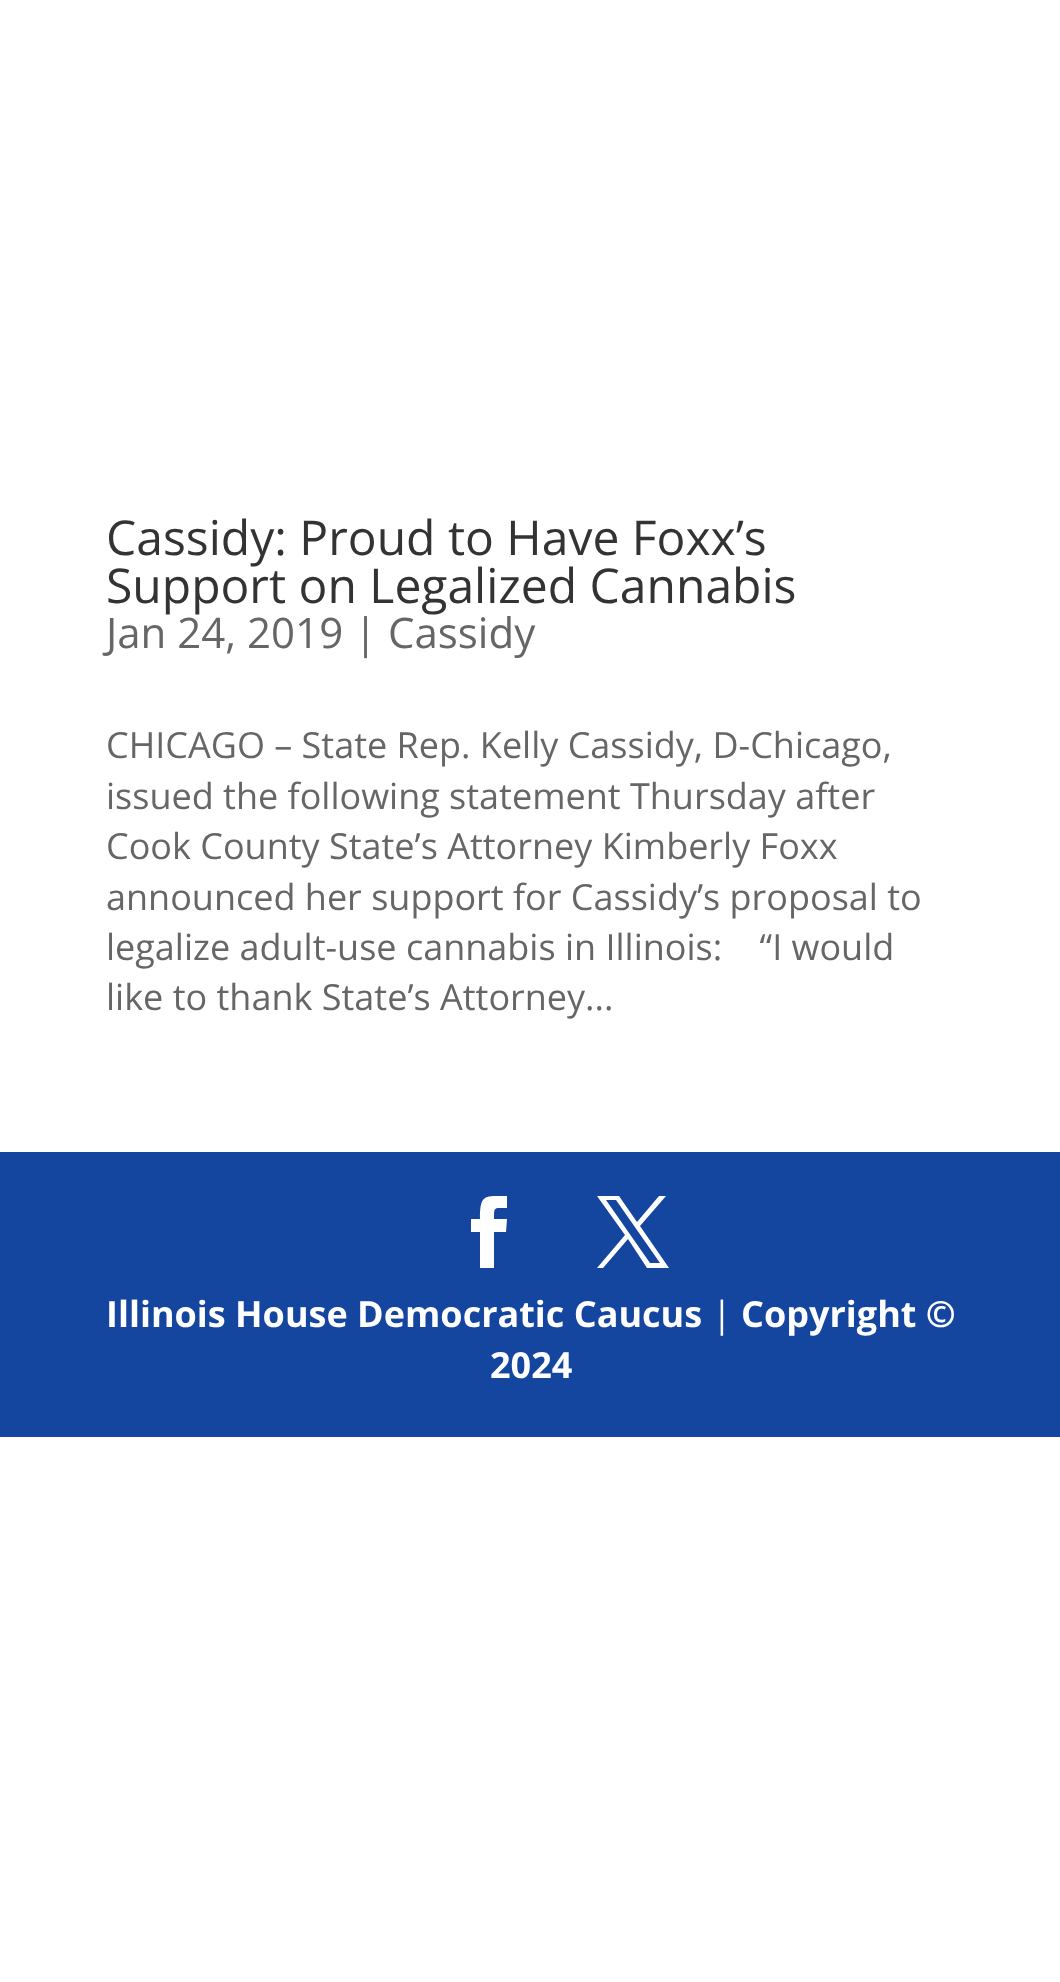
(async () => {
    const canvas = document.querySelector("canvas");
    canvas.width = 1060;
    canvas.height = 1982;
    const context = canvas.getContext("2d");
    context.miterLimit = 4;
    context.fontKerning = "normal";
    function write(s, x, y, font, color) {
        context.font = font;
        context.fillStyle = color;
        context.fillText(s, x, y);
    }
    function block(x, y, w, h, color) {
        context.fillStyle = color;
        context.fillRect(x, y, w, h);
    }

    block(0, 0, 1060, 1982, "rgb(255, 255, 255)");
    write("Cassidy: Proud to Have Foxx’s", 106, 555, "48px Open Sans", "rgb(51, 51, 51)");
    write("Support on Legalized Cannabis", 106, 603, "48px Open Sans", "rgb(51, 51, 51)");
    write("Jan 24, 2019 | Cassidy", 106, 648, "42px Open Sans", "rgb(102, 102, 102)");
    write("CHICAGO – State Rep. Kelly Cassidy, D-Chicago,", 106, 758, "36px Open Sans", "rgb(102, 102, 102)");
    write("issued the following statement Thursday after", 106, 809, "36px Open Sans", "rgb(102, 102, 102)");
    write("Cook County State’s Attorney Kimberly Foxx", 106, 859, "36px Open Sans", "rgb(102, 102, 102)");
    write("announced her support for Cassidy’s proposal to", 106, 910, "36px Open Sans", "rgb(102, 102, 102)");
    write("legalize adult-use cannabis in Illinois:    “I would", 106, 960, "36px Open Sans", "rgb(102, 102, 102)");
    write("like to thank State’s Attorney...", 106, 1010, "36px Open Sans", "rgb(102, 102, 102)");
    block(0, 1152, 1060, 285, "rgb(20, 70, 160)");
    context.fillStyle = "rgb(255, 255, 255)";
    context.beginPath();
    context.moveTo(480, 1268);
    context.lineTo(494, 1268);
    context.lineTo(494, 1232);
    context.lineTo(506, 1232);
    context.lineTo(507, 1219);
    context.lineTo(494, 1219);
    context.bezierCurveTo(494, 1206, 494, 1208, 507, 1208);
    context.lineTo(507, 1196);
    context.bezierCurveTo(484, 1196, 480, 1194, 480, 1219);
    context.lineTo(471, 1219);
    context.lineTo(471, 1232);
    context.lineTo(480, 1232);
    context.closePath();
    context.fill();
    context.beginPath();
    context.moveTo(597, 1196);
    context.lineTo(625, 1235);
    context.lineTo(597, 1268);
    context.lineTo(603, 1268);
    context.lineTo(628, 1239);
    context.lineTo(647, 1268);
    context.lineTo(669, 1268);
    context.lineTo(640, 1226);
    context.lineTo(666, 1196);
    context.lineTo(659, 1196);
    context.lineTo(637, 1222);
    context.lineTo(619, 1196);
    context.closePath();
    context.moveTo(606, 1200);
    context.lineTo(616, 1200);
    context.lineTo(660, 1263);
    context.lineTo(650, 1263);
    context.closePath();
    context.fill();
    write("Illinois House Democratic Caucus", 106, 1327, "bold 36px Open Sans", "rgb(255, 255, 255)");
    write("|", 712, 1327, "36px Open Sans", "rgb(255, 255, 255)");
    write("Copyright ©", 741, 1327, "bold 36px Open Sans", "rgb(255, 255, 255)");
    write("2024", 490, 1378, "bold 36px Open Sans", "rgb(255, 255, 255)");
})();
